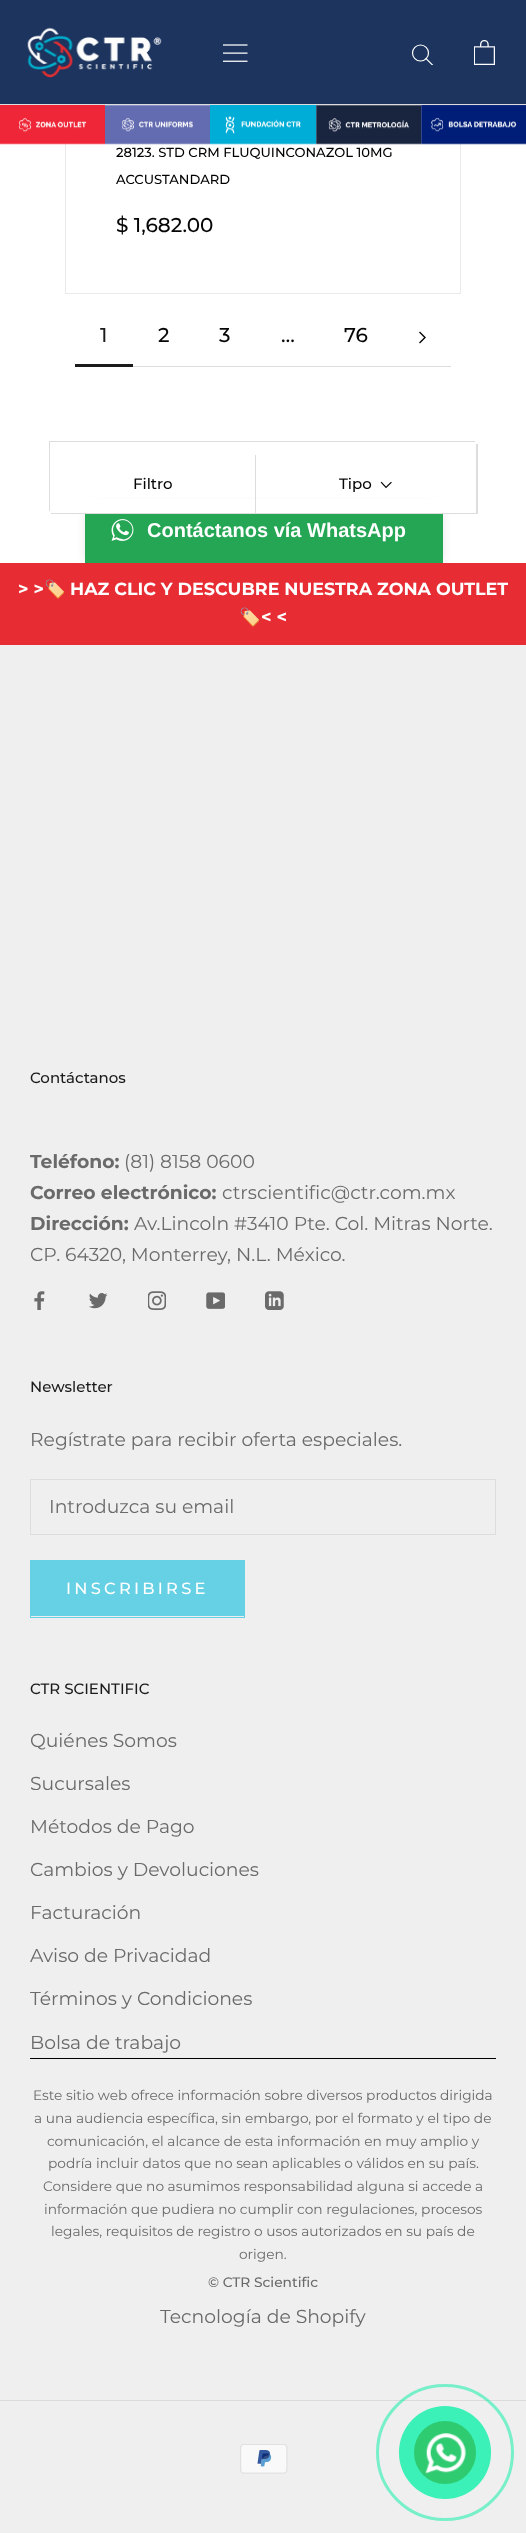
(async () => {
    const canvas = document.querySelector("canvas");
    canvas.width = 526;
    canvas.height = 2533;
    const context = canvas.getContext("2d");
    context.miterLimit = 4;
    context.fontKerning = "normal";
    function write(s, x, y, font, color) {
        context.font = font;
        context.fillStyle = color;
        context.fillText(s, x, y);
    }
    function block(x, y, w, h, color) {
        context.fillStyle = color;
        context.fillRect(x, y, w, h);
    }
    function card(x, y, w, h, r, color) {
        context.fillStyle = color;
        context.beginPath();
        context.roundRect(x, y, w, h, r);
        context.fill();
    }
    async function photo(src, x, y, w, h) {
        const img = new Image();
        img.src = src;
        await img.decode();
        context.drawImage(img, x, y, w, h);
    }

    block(0, 0, 526, 2533, "rgb(255, 255, 255)");
    context.strokeStyle = "rgb(234, 234, 234)";
    context.strokeRect(65.5, -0.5, 395, 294);
    block(0, 0, 526, 104, "rgb(29, 52, 94)");
    block(0, 104, 526, 1, "rgb(221, 221, 221)");
    await photo("media/1.png", 27, 27, 135, 51);
    await photo("media/2.png", 223, 44, 25, 18);
    context.save();
    context.beginPath();
    context.rect(411, 44, 23, 21);
    context.clip();
    context.beginPath();
    context.moveTo(432.5, 65);
    context.lineTo(426, 58.5);
    context.strokeStyle = "rgb(255, 255, 255)";
    context.lineWidth = 1.2;
    context.lineCap = "square";
    context.stroke();
    context.restore();
    context.beginPath();
    context.arc(420.5, 53, 8, 0, Math.PI * 2);
    context.strokeStyle = "rgb(255, 255, 255)";
    context.lineWidth = 1.2;
    context.stroke();
    await photo("media/3.png", 474, 40, 21, 25);
    await photo("media/4.png", 0, 105, 105, 40);
    await photo("media/5.png", 105, 105, 105, 40);
    await photo("media/6.png", 210, 105, 107, 40);
    await photo("media/7.png", 316, 105, 106, 40);
    await photo("media/8.png", 421, 105, 105, 40);
    write("28123. STD CRM FLUQUINCONAZOL 10MG", 116, 157, "500 13.1px Montserrat", "rgb(0, 0, 0)");
    write("ACCUSTANDARD", 116, 184, "500 13.1px Montserrat", "rgb(0, 0, 0)");
    write("$ 1,682.00", 116, 232, "500 20px Montserrat", "rgb(6, 6, 6)");
    block(75, 364, 58, 3, "rgb(28, 27, 27)");
    write("1", 100, 342, "500 20px Montserrat", "rgb(28, 27, 27)");
    block(133, 366, 318, 1, "rgb(221, 221, 221)");
    write("2", 158, 342, "500 20px Montserrat", "rgb(6, 6, 6)");
    write("3", 219, 342, "500 20px Montserrat", "rgb(6, 6, 6)");
    write("…", 281, 342, "500 20px Montserrat", "rgb(6, 6, 6)");
    write("76", 344, 342, "500 20px Montserrat", "rgb(6, 6, 6)");
    context.beginPath();
    context.moveTo(420, 332.5);
    context.lineTo(425, 337.5);
    context.lineTo(420, 342.5);
    context.strokeStyle = "rgb(6, 6, 6)";
    context.lineWidth = 1.4;
    context.lineCap = "square";
    context.stroke();
    context.fillStyle = "rgba(0, 0, 0, 0.1)";
    context.filter = "blur(4px)";
    context.beginPath();
    context.roundRect(85, 504, 358, 64, 15);
    context.fill();
    context.filter = "none";
    context.fillStyle = "rgb(221, 221, 221)";
    context.beginPath();
    context.moveTo(49, 441);
    context.lineTo(49, 511);
    context.lineTo(50, 511);
    context.lineTo(50, 442);
    context.lineTo(475, 442);
    context.lineTo(475, 441);
    context.closePath();
    context.fill();
    context.beginPath();
    context.moveTo(51, 512);
    context.lineTo(51, 514);
    context.lineTo(478, 514);
    context.lineTo(478, 444);
    context.lineTo(476, 444);
    context.lineTo(476, 512);
    context.closePath();
    context.fill();
    block(51, 499, 425, 14, "rgb(255, 255, 255)");
    write("Filtro", 133, 489, "500 15px Montserrat", "rgb(6, 6, 6)");
    block(255, 455, 1, 58, "rgb(221, 221, 221)");
    write("Tipo", 339, 489, "500 15px Montserrat", "rgb(6, 6, 6)");
    context.beginPath();
    context.moveTo(391, 482.5);
    context.lineTo(386, 487.5);
    context.lineTo(381.5, 482.5);
    context.lineWidth = 1.2;
    context.stroke();
    block(85, 514, 358, 49, "rgb(36, 166, 84)");
    await photo("media/9.png", 111, 519, 23, 22);
    write("Contáctanos vía WhatsApp", 147, 537, "bold 20px Liberation Sans", "rgb(255, 255, 255)");
    block(0, 563, 526, 82, "rgb(231, 44, 51)");
    write("> >", 18, 595, "bold 17.5px Montserrat", "rgb(255, 255, 255)");
    write("🏷️", 44, 595, "bold 17.5px Noto Color Emoji", "rgb(255, 255, 255)");
    write("HAZ CLIC Y DESCUBRE NUESTRA ZONA OUTLET", 70, 595, "bold 17.5px Montserrat", "rgb(255, 255, 255)");
    write("🏷️", 239, 623, "bold 17.5px Noto Color Emoji", "rgb(255, 255, 255)");
    write("< <", 261, 623, "bold 17.5px Montserrat", "rgb(255, 255, 255)");
    block(0, 645, 526, 1888, "rgb(239, 239, 239)");
    write("Contáctanos", 30, 1083, "500 15px Montserrat", "rgb(28, 27, 27)");
    write("Teléfono:", 30, 1168, "bold 18.75px Montserrat", "rgb(106, 106, 106)");
    write("(81) 8158 0600", 124, 1168, "18.75px Montserrat", "rgb(106, 106, 106)");
    write("Correo electrónico:", 30, 1199, "bold 18.75px Montserrat", "rgb(106, 106, 106)");
    write("ctrscientific@ctr.com.mx", 222, 1199, "18.75px Montserrat", "rgb(106, 106, 106)");
    write("Dirección:", 30, 1230, "bold 18.75px Montserrat", "rgb(106, 106, 106)");
    write("Av.Lincoln #3410 Pte. Col. Mitras Norte.", 134, 1230, "18.75px Montserrat", "rgb(106, 106, 106)");
    write("CP. 64320, Monterrey, N.L. México.", 30, 1261, "18.75px Montserrat", "rgb(106, 106, 106)");
    await photo("media/10.png", 34, 1291, 11, 19);
    await photo("media/11.png", 89, 1293, 19, 16);
    await photo("media/12.png", 148, 1291, 18, 19);
    await photo("media/13.png", 206, 1292, 19, 17);
    await photo("media/14.png", 265, 1291, 19, 19);
    write("Newsletter", 30, 1392, "500 15px Montserrat", "rgb(28, 27, 27)");
    write("Regístrate para recibir oferta especiales.", 30, 1446, "18.75px Montserrat", "rgb(106, 106, 106)");
    context.strokeStyle = "rgb(221, 221, 221)";
    context.lineWidth = 1;
    context.strokeRect(30.5, 1479.5, 465, 55);
    write("Introduzca su email", 49, 1513, "18.75px Montserrat", "rgb(106, 106, 106)");
    context.strokeStyle = "rgb(102, 208, 228)";
    context.strokeRect(30.5, 1560.5, 214, 57);
    block(31, 1561, 213, 55, "rgb(102, 208, 228)");
    context.letterSpacing = "3.25px";
    write("INSCRIBIRSE", 66, 1594, "500 16.25px Montserrat", "rgb(255, 255, 255)");
    context.letterSpacing = "0px";
    write("CTR SCIENTIFIC", 30, 1694, "500 15px Montserrat", "rgb(28, 27, 27)");
    write("Quiénes Somos", 30, 1747, "18.75px Montserrat", "rgb(106, 106, 106)");
    write("Sucursales", 30, 1790, "18.75px Montserrat", "rgb(106, 106, 106)");
    write("Métodos de Pago", 30, 1833, "18.75px Montserrat", "rgb(106, 106, 106)");
    write("Cambios y Devoluciones", 30, 1876, "18.75px Montserrat", "rgb(106, 106, 106)");
    write("Facturación", 30, 1919, "18.75px Montserrat", "rgb(106, 106, 106)");
    write("Aviso de Privacidad", 30, 1962, "18.75px Montserrat", "rgb(106, 106, 106)");
    write("Términos y Condiciones", 30, 2005, "18.75px Montserrat", "rgb(106, 106, 106)");
    write("Bolsa de trabajo", 30, 2049, "18.75px Montserrat", "rgb(106, 106, 106)");
    block(30, 2058, 466, 1, "rgb(0, 0, 0)");
    write("Este sitio web ofrece información sobre diversos productos dirigida", 33, 2100, "13.75px Montserrat", "rgb(106, 106, 106)");
    write("a una audiencia específica, sin embargo, por el formato y el tipo de", 34, 2123, "13.75px Montserrat", "rgb(106, 106, 106)");
    write("comunicación, el alcance de esta información en muy amplio y", 47, 2146, "13.75px Montserrat", "rgb(106, 106, 106)");
    write("podría incluir datos que no sean aplicables o válidos en su país.", 48, 2168, "13.75px Montserrat", "rgb(106, 106, 106)");
    write("Considere que no asumimos responsabilidad alguna si accede a", 43, 2191, "13.75px Montserrat", "rgb(106, 106, 106)");
    write("información que pudiera no cumplir con regulaciones, procesos", 44, 2214, "13.75px Montserrat", "rgb(106, 106, 106)");
    write("legales, requisitos de registro o usos autorizados en su país de", 51, 2236, "13.75px Montserrat", "rgb(106, 106, 106)");
    write("origen.", 239, 2259, "13.75px Montserrat", "rgb(106, 106, 106)");
    write("© CTR Scientific", 208, 2287, "500 13.75px Montserrat", "rgb(106, 106, 106)");
    write("Tecnología de Shopify", 160, 2323, "18.75px Montserrat", "rgb(106, 106, 106)");
    block(0, 2400, 526, 1, "rgb(219, 219, 219)");
    await photo("media/15.png", 240, 2444, 48, 30);
    context.beginPath();
    context.roundRect(377.5, 2385.5, 135, 134, 67);
    context.strokeStyle = "rgba(0, 242, 164, 0.5)";
    context.lineWidth = 3;
    context.stroke();
    card(399, 2406, 92, 93, 46, "rgb(60, 241, 183)");
    card(414, 2421, 62, 63, 31, "rgb(46, 203, 113)");
    await photo("media/16.png", 425, 2433, 41, 41);
})();
